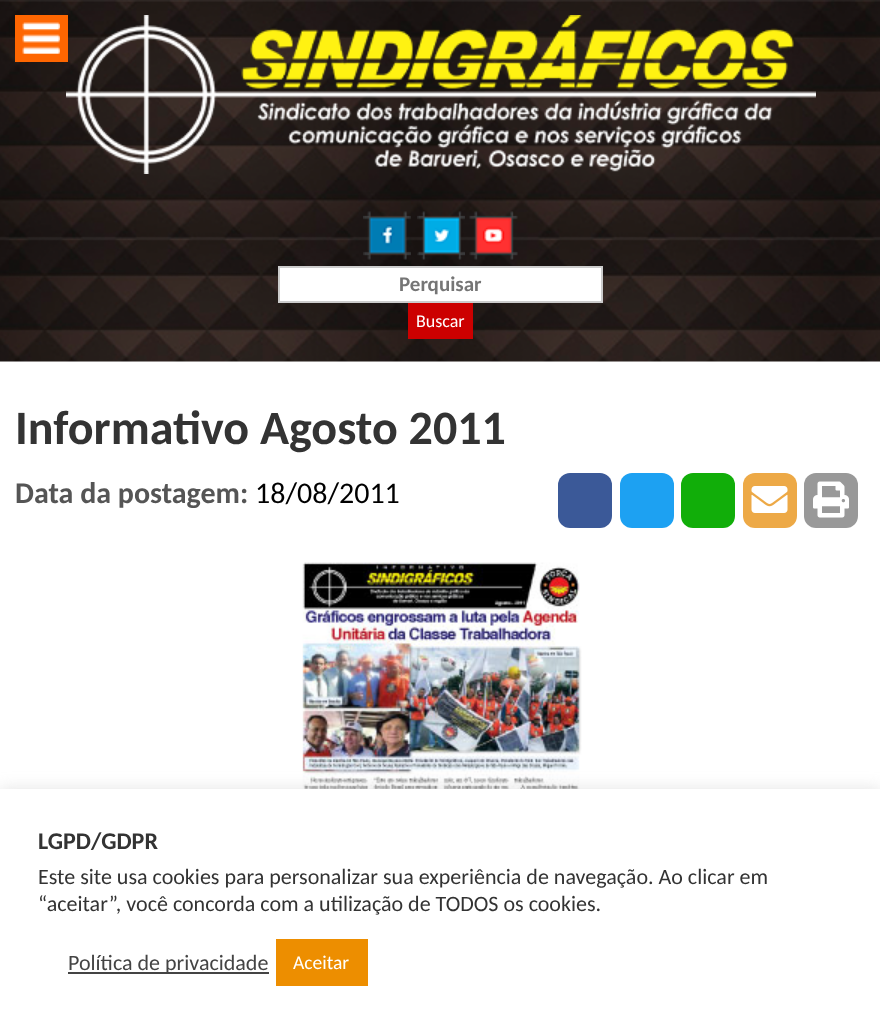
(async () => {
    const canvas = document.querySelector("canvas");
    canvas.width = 880;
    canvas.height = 1030;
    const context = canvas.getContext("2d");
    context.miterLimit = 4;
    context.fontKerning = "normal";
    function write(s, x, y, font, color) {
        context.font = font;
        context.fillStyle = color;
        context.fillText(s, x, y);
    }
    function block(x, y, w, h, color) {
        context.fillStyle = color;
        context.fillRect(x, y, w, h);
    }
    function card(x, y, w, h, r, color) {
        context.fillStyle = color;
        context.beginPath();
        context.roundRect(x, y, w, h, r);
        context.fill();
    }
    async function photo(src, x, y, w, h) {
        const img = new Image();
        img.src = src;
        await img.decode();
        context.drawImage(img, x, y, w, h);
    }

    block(0, 0, 880, 1030, "rgb(255, 255, 255)");
    await photo("media/2.png", 0, 0, 880, 362);
    await photo("media/3.png", 66, 15, 750, 159);
    block(15, 15, 53, 47, "rgb(254, 102, 1)");
    await photo("media/1.png", 22, 22, 38, 32);
    await photo("media/4.png", 363, 211, 48, 49);
    await photo("media/5.png", 417, 211, 48, 49);
    await photo("media/6.png", 469, 211, 49, 49);
    context.fillStyle = "rgb(255, 255, 255)";
    context.beginPath();
    context.rect(279, 267, 323, 35);
    context.fill();
    context.strokeStyle = "rgb(204, 204, 204)";
    context.lineWidth = 2;
    context.stroke();
    write("Perquisar", 399, 291, "bold 21px Carlito", "rgb(117, 117, 117)");
    block(408, 303, 65, 36, "rgb(204, 0, 0)");
    write("Buscar", 416, 327, "18px Carlito", "rgb(255, 255, 255)");
    write("Informativo Agosto 2011", 15, 444, "bold 48px Carlito", "rgb(51, 51, 51)");
    write("Data da postagem:", 15, 503, "bold 30px Carlito", "rgb(85, 85, 85)");
    write("18/08/2011", 255, 503, "30px Carlito", "rgb(0, 0, 0)");
    card(558, 473, 54, 55, 12, "rgb(59, 89, 152)");
    card(620, 473, 54, 55, 12, "rgb(29, 161, 242)");
    card(681, 473, 54, 55, 12, "rgb(17, 174, 9)");
    card(743, 473, 54, 55, 12, "rgb(237, 169, 70)");
    await photo("media/7.png", 751, 486, 37, 27);
    card(804, 473, 54, 55, 12, "rgb(153, 153, 153)");
    await photo("media/8.png", 813, 481, 36, 37);
    await photo("media/9.png", 302, 562, 280, 227);
    context.fillStyle = "rgba(172, 171, 171, 0.3)";
    context.filter = "blur(7.5px)";
    context.beginPath();
    context.rect(0, 788, 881, 241);
    context.fill();
    context.filter = "none";
    block(0, 789, 880, 241, "rgb(255, 255, 255)");
    write("LGPD/GDPR", 38, 849, "bold 24px Carlito", "rgb(51, 51, 51)");
    write("Este site usa cookies para personalizar sua experiência de navegação. Ao clicar em", 38, 884, "22px Carlito", "rgb(51, 51, 51)");
    write("“aceitar”, você concorda com a utilização de TODOS os cookies.", 38, 911, "22px Carlito", "rgb(51, 51, 51)");
    block(68, 972, 201, 2, "rgb(68, 68, 68)");
    write("Política de privacidade", 68, 970, "22px Carlito", "rgb(68, 68, 68)");
    block(276, 939, 92, 47, "rgb(237, 142, 0)");
    write("Aceitar", 293, 969, "19.5px Carlito", "rgb(255, 255, 255)");
})();
